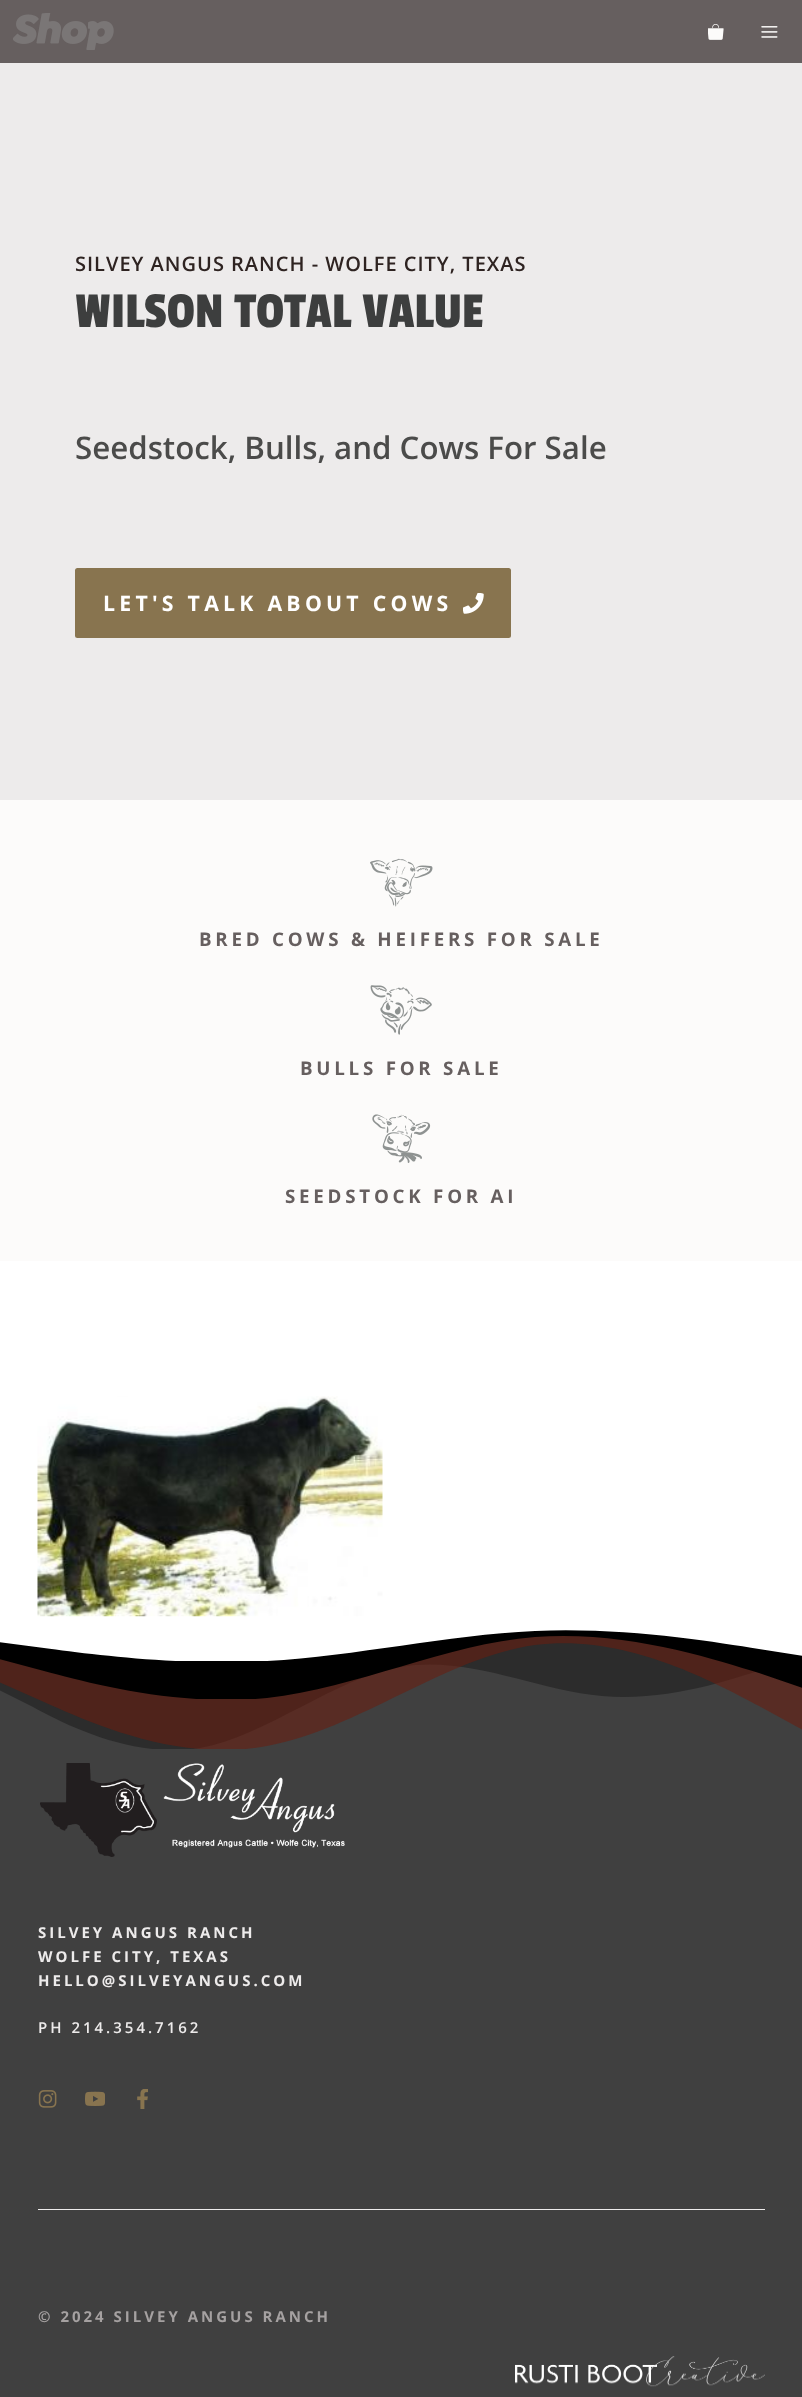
(async () => {
    const canvas = document.querySelector("canvas");
    canvas.width = 802;
    canvas.height = 2397;
    const context = canvas.getContext("2d");
    context.miterLimit = 4;
    context.fontKerning = "normal";
    function write(s, x, y, font, color) {
        context.font = font;
        context.fillStyle = color;
        context.fillText(s, x, y);
    }
    function block(x, y, w, h, color) {
        context.fillStyle = color;
        context.fillRect(x, y, w, h);
    }
    function card(x, y, w, h, r, color) {
        context.fillStyle = color;
        context.beginPath();
        context.roundRect(x, y, w, h, r);
        context.fill();
    }
    async function photo(src, x, y, w, h) {
        const img = new Image();
        img.src = src;
        await img.decode();
        context.drawImage(img, x, y, w, h);
    }

    block(0, 0, 802, 2397, "rgb(255, 255, 255)");
    block(0, 0, 802, 63, "rgb(102, 95, 95)");
    await photo("media/1.png", 13, 13, 101, 37);
    await photo("media/2.png", 708, 24, 16, 16);
    await photo("media/3.png", 761, 26, 17, 12);
    block(0, 63, 802, 737, "rgb(237, 235, 235)");
    context.letterSpacing = "1px";
    write("SILVEY ANGUS RANCH - WOLFE CITY, TEXAS", 75, 271, "600 20px Open Sans", "rgb(46, 35, 33)");
    context.letterSpacing = "0px";
    write("WILSON TOTAL VALUE", 75, 327, "52.5px Passion One", "rgb(61, 62, 62)");
    write("Seedstock, Bulls, and Cows For Sale", 75, 459, "600 31.25px Open Sans", "rgb(75, 75, 74)");
    card(75, 568, 436, 70, 2.5, "rgb(136, 116, 79)");
    context.letterSpacing = "4.25px";
    write("LET'S TALK ABOUT COWS", 103, 611, "bold 21.25px Open Sans", "rgb(255, 255, 255)");
    await photo("media/4.png", 463, 593, 21, 21);
    block(0, 800, 802, 461, "rgb(252, 251, 250)");
    await photo("media/5.png", 370, 858, 63, 49);
    context.letterSpacing = "3.75px";
    write("BRED COWS & HEIFERS FOR SALE", 199, 946, "bold 18.75px Open Sans", "rgb(102, 95, 95)");
    await photo("media/6.png", 370, 985, 62, 50);
    write("BULLS FOR SALE", 300, 1075, "bold 18.75px Open Sans", "rgb(102, 95, 95)");
    await photo("media/7.png", 372, 1114, 59, 49);
    write("SEEDSTOCK FOR AI", 285, 1203, "bold 18.75px Open Sans", "rgb(102, 95, 95)");
    await photo("media/8.png", 37, 1396, 346, 221);
    block(0, 1664, 802, 733, "rgb(64, 64, 64)");
    context.save();
    context.beginPath();
    context.rect(0, 1624, 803, 125);
    context.clip();
    context.fillStyle = "rgb(44, 44, 44)";
    context.beginPath();
    context.moveTo(-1, 1625);
    context.lineTo(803, 1625);
    context.lineTo(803, 1655);
    context.lineTo(770, 1667);
    context.bezierCurveTo(736, 1678, 669, 1702, 602, 1696);
    context.bezierCurveTo(535, 1690, 468, 1655, 401, 1667);
    context.bezierCurveTo(334, 1678, 267, 1736, 200, 1748);
    context.bezierCurveTo(133, 1759, 66, 1725, 33, 1707);
    context.lineTo(-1, 1690);
    context.closePath();
    context.fill();
    context.fillStyle = "rgba(107, 29, 15, 0.56)";
    context.beginPath();
    context.moveTo(-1, 1625);
    context.lineTo(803, 1625);
    context.lineTo(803, 1730);
    context.lineTo(759, 1706);
    context.bezierCurveTo(714, 1682, 625, 1633, 535, 1645);
    context.bezierCurveTo(446, 1657, 357, 1730, 267, 1746);
    context.bezierCurveTo(178, 1763, 89, 1722, 44, 1702);
    context.lineTo(-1, 1682);
    context.closePath();
    context.fill();
    context.restore();
    context.save();
    context.beginPath();
    context.rect(0, 1624, 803, 75);
    context.clip();
    context.fillStyle = "rgb(0, 0, 0)";
    context.beginPath();
    context.moveTo(-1, 1625);
    context.lineTo(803, 1625);
    context.lineTo(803, 1688);
    context.lineTo(759, 1673);
    context.bezierCurveTo(714, 1659, 625, 1630, 535, 1637);
    context.bezierCurveTo(446, 1644, 357, 1688, 267, 1698);
    context.bezierCurveTo(178, 1707, 89, 1683, 44, 1671);
    context.lineTo(-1, 1659);
    context.closePath();
    context.fill();
    context.restore();
    context.save();
    context.beginPath();
    context.rect(0, 1624, 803, 37);
    context.clip();
    context.fillStyle = "rgb(255, 255, 255)";
    context.beginPath();
    context.moveTo(-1, 1625);
    context.lineTo(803, 1625);
    context.lineTo(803, 1656);
    context.lineTo(759, 1649);
    context.bezierCurveTo(714, 1642, 625, 1627, 535, 1631);
    context.bezierCurveTo(446, 1635, 357, 1656, 267, 1661);
    context.bezierCurveTo(178, 1666, 89, 1654, 44, 1648);
    context.lineTo(-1, 1642);
    context.closePath();
    context.fill();
    context.restore();
    await photo("media/9.png", 40, 1763, 305, 94);
    context.letterSpacing = "3px";
    write("SILVEY ANGUS RANCH", 38, 1938, "bold 15px Open Sans", "rgb(237, 235, 235)");
    write("WOLFE CITY, TEXAS", 38, 1962, "bold 15px Open Sans", "rgb(237, 235, 235)");
    write("HELLO@SILVEYANGUS.COM", 38, 1986, "bold 15px Open Sans", "rgb(237, 235, 235)");
    write("PH 214.354.7162", 38, 2033, "600 15px Open Sans", "rgb(237, 235, 235)");
    await photo("media/10.png", 38, 2090, 19, 18);
    await photo("media/11.png", 85, 2091, 20, 15);
    await photo("media/12.png", 137, 2089, 11, 20);
    block(38, 2209, 727, 1, "rgb(237, 235, 235)");
    write("© 2024 SILVEY ANGUS RANCH", 38, 2322, "bold 15px Open Sans", "rgb(165, 161, 161)");
    await photo("media/13.png", 515, 2356, 250, 31);
})();
